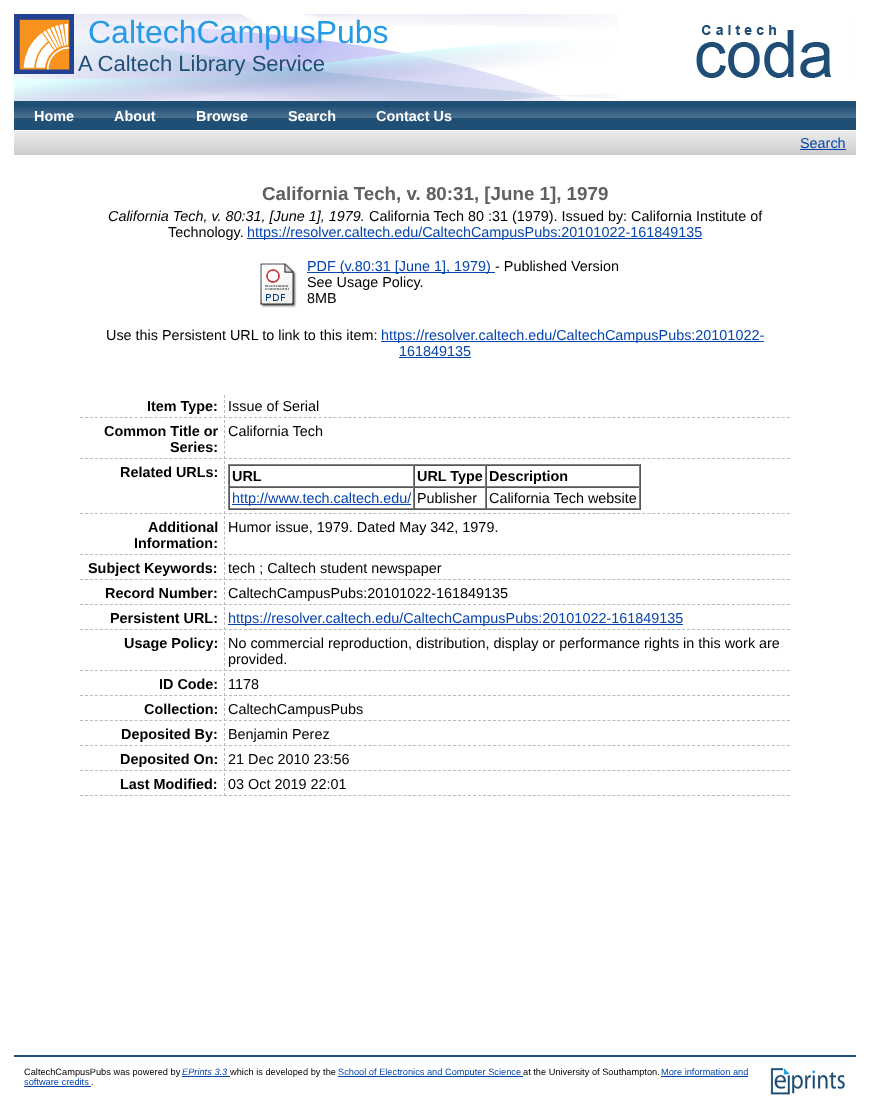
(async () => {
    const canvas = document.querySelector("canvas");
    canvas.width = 870;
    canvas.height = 1110;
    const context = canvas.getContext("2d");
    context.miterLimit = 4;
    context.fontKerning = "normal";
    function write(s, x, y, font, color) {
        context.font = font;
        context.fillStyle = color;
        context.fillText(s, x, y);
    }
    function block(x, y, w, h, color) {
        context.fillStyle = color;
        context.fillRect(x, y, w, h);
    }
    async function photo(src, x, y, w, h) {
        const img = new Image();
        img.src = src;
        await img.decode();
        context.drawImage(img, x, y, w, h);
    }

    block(0, 0, 870, 1110, "rgb(255, 255, 255)");
    await photo("media/1.png", 14, 14, 605, 87);
    await photo("media/2.png", 14, 14, 60, 60);
    write("CaltechCampusPubs", 88, 43, "32px Liberation Sans", "rgb(38, 154, 227)");
    await photo("media/3.png", 696, 18, 153, 61);
    write("A Caltech Library Service", 78, 71, "22px Liberation Sans", "rgb(32, 79, 118)");
    block(14, 101, 842, 29, "rgb(32, 79, 118)");
    await photo("media/4.png", 14, 107, 842, 11);
    write("Home", 34, 121, "bold 14.4px Liberation Sans", "rgb(255, 255, 255)");
    write("About", 114, 121, "bold 14.4px Liberation Sans", "rgb(255, 255, 255)");
    write("Browse", 196, 121, "bold 14.4px Liberation Sans", "rgb(255, 255, 255)");
    write("Search", 288, 121, "bold 14.4px Liberation Sans", "rgb(255, 255, 255)");
    write("Contact Us", 376, 121, "bold 14.4px Liberation Sans", "rgb(255, 255, 255)");
    block(14, 131, 842, 24, "rgb(204, 204, 204)");
    await photo("media/5.png", 14, 131, 842, 22);
    write("Search", 800, 148, "14.4px Liberation Sans", "rgb(6, 69, 173)");
    block(800, 149, 46, 1, "rgb(6, 69, 173)");
    write("California Tech, v. 80:31, [June 1], 1979", 262, 200, "bold 18.75px Liberation Sans", "rgb(96, 96, 96)");
    write("California Tech, v. 80:31, [June 1], 1979.", 108, 221, "italic 14.4px Liberation Sans", "rgb(0, 0, 0)");
    write("California Tech 80 :31 (1979). Issued by: California Institute of", 369, 221, "14.4px Liberation Sans", "rgb(0, 0, 0)");
    write("Technology.", 168, 237, "14.4px Liberation Sans", "rgb(0, 0, 0)");
    block(247, 238, 455, 1, "rgb(6, 69, 173)");
    write("https://resolver.caltech.edu/CaltechCampusPubs:20101022-161849135", 247, 237, "14.4px Liberation Sans", "rgb(6, 69, 173)");
    await photo("media/6.png", 260, 263, 37, 45);
    block(307, 272, 188, 1, "rgb(6, 69, 173)");
    write("PDF (v.80:31 [June 1], 1979)", 307, 271, "14.4px Liberation Sans", "rgb(6, 69, 173)");
    write("- Published Version", 495, 271, "14.4px Liberation Sans", "rgb(0, 0, 0)");
    write("See Usage Policy.", 307, 287, "14.4px Liberation Sans", "rgb(0, 0, 0)");
    write("8MB", 307, 303, "14.4px Liberation Sans", "rgb(0, 0, 0)");
    write("Use this Persistent URL to link to this item:", 106, 340, "14.4px Liberation Sans", "rgb(0, 0, 0)");
    block(381, 341, 383, 1, "rgb(6, 69, 173)");
    write("https://resolver.caltech.edu/CaltechCampusPubs:20101022-", 381, 340, "14.4px Liberation Sans", "rgb(6, 69, 173)");
    write("161849135", 399, 356, "14.4px Liberation Sans", "rgb(6, 69, 173)");
    block(399, 357, 72, 1, "rgb(6, 69, 173)");
    context.beginPath();
    context.moveTo(80, 417.5);
    context.lineTo(222, 417.5);
    context.strokeStyle = "rgb(187, 187, 187)";
    context.setLineDash([3, 1.96]);
    context.stroke();
    write("Item Type:", 147, 411, "bold 14.4px Liberation Sans", "rgb(0, 0, 0)");
    context.beginPath();
    context.moveTo(224, 417.5);
    context.lineTo(790, 417.5);
    context.setLineDash([3, 1.98]);
    context.stroke();
    context.beginPath();
    context.moveTo(224.5, 395);
    context.lineTo(224.5, 418);
    context.setLineDash([3, 2]);
    context.stroke();
    write("Issue of Serial", 228, 411, "14.4px Liberation Sans", "rgb(0, 0, 0)");
    context.beginPath();
    context.moveTo(80, 458.5);
    context.lineTo(222, 458.5);
    context.setLineDash([3, 1.96]);
    context.stroke();
    write("Common Title or", 104, 436, "bold 14.4px Liberation Sans", "rgb(0, 0, 0)");
    write("Series:", 170, 452, "bold 14.4px Liberation Sans", "rgb(0, 0, 0)");
    context.beginPath();
    context.moveTo(224, 458.5);
    context.lineTo(790, 458.5);
    context.setLineDash([3, 1.98]);
    context.stroke();
    context.beginPath();
    context.moveTo(224.5, 420);
    context.lineTo(224.5, 459);
    context.setLineDash([3, 2.14]);
    context.stroke();
    write("California Tech", 228, 436, "14.4px Liberation Sans", "rgb(0, 0, 0)");
    context.beginPath();
    context.moveTo(80, 513.5);
    context.lineTo(222, 513.5);
    context.setLineDash([3, 1.96]);
    context.stroke();
    write("Related URLs:", 120, 477, "bold 14.4px Liberation Sans", "rgb(0, 0, 0)");
    context.beginPath();
    context.moveTo(224, 513.5);
    context.lineTo(790, 513.5);
    context.setLineDash([3, 1.98]);
    context.stroke();
    context.beginPath();
    context.moveTo(224.5, 461);
    context.lineTo(224.5, 514);
    context.setLineDash([3, 2]);
    context.stroke();
    block(228, 464, 413, 1, "rgb(128, 128, 128)");
    block(640, 464, 1, 46, "rgb(85, 85, 85)");
    block(228, 509, 413, 1, "rgb(85, 85, 85)");
    block(228, 464, 1, 46, "rgb(128, 128, 128)");
    block(229, 465, 411, 1, "rgb(85, 85, 85)");
    block(413, 465, 1, 22, "rgb(128, 128, 128)");
    block(229, 486, 185, 1, "rgb(128, 128, 128)");
    block(229, 465, 1, 22, "rgb(85, 85, 85)");
    write("URL", 232, 481, "bold 14.4px Liberation Sans", "rgb(0, 0, 0)");
    block(485, 465, 1, 22, "rgb(128, 128, 128)");
    block(414, 486, 72, 1, "rgb(128, 128, 128)");
    block(414, 465, 1, 22, "rgb(85, 85, 85)");
    write("URL Type", 417, 481, "bold 14.4px Liberation Sans", "rgb(0, 0, 0)");
    block(639, 465, 1, 22, "rgb(128, 128, 128)");
    block(486, 486, 154, 1, "rgb(128, 128, 128)");
    block(486, 465, 1, 22, "rgb(85, 85, 85)");
    write("Description", 489, 481, "bold 14.4px Liberation Sans", "rgb(0, 0, 0)");
    block(229, 487, 411, 1, "rgb(85, 85, 85)");
    block(413, 487, 1, 22, "rgb(128, 128, 128)");
    block(229, 508, 185, 1, "rgb(128, 128, 128)");
    block(229, 487, 1, 22, "rgb(85, 85, 85)");
    block(232, 504, 179, 1, "rgb(6, 69, 173)");
    write("http://www.tech.caltech.edu/", 232, 503, "14.4px Liberation Sans", "rgb(6, 69, 173)");
    block(485, 487, 1, 22, "rgb(128, 128, 128)");
    block(414, 508, 72, 1, "rgb(128, 128, 128)");
    block(414, 487, 1, 22, "rgb(85, 85, 85)");
    write("Publisher", 417, 503, "14.4px Liberation Sans", "rgb(0, 0, 0)");
    block(639, 487, 1, 22, "rgb(128, 128, 128)");
    block(486, 508, 154, 1, "rgb(128, 128, 128)");
    block(486, 487, 1, 22, "rgb(85, 85, 85)");
    write("California Tech website", 489, 503, "14.4px Liberation Sans", "rgb(0, 0, 0)");
    context.beginPath();
    context.moveTo(80, 554.5);
    context.lineTo(222, 554.5);
    context.setLineDash([3, 1.96]);
    context.stroke();
    write("Additional", 148, 532, "bold 14.4px Liberation Sans", "rgb(0, 0, 0)");
    write("Information:", 134, 548, "bold 14.4px Liberation Sans", "rgb(0, 0, 0)");
    context.beginPath();
    context.moveTo(224, 554.5);
    context.lineTo(790, 554.5);
    context.setLineDash([3, 1.98]);
    context.stroke();
    context.beginPath();
    context.moveTo(224.5, 516);
    context.lineTo(224.5, 555);
    context.setLineDash([3, 2.14]);
    context.stroke();
    write("Humor issue, 1979. Dated May 342, 1979.", 228, 532, "14.4px Liberation Sans", "rgb(0, 0, 0)");
    context.beginPath();
    context.moveTo(80, 579.5);
    context.lineTo(222, 579.5);
    context.setLineDash([3, 1.96]);
    context.stroke();
    write("Subject Keywords:", 88, 573, "bold 14.4px Liberation Sans", "rgb(0, 0, 0)");
    context.beginPath();
    context.moveTo(224, 579.5);
    context.lineTo(790, 579.5);
    context.setLineDash([3, 1.98]);
    context.stroke();
    context.beginPath();
    context.moveTo(224.5, 557);
    context.lineTo(224.5, 580);
    context.setLineDash([3, 2]);
    context.stroke();
    write("tech ; Caltech student newspaper", 228, 573, "14.4px Liberation Sans", "rgb(0, 0, 0)");
    context.beginPath();
    context.moveTo(80, 604.5);
    context.lineTo(222, 604.5);
    context.setLineDash([3, 1.96]);
    context.stroke();
    write("Record Number:", 105, 598, "bold 14.4px Liberation Sans", "rgb(0, 0, 0)");
    context.beginPath();
    context.moveTo(224, 604.5);
    context.lineTo(790, 604.5);
    context.setLineDash([3, 1.98]);
    context.stroke();
    context.beginPath();
    context.moveTo(224.5, 582);
    context.lineTo(224.5, 605);
    context.setLineDash([3, 2]);
    context.stroke();
    write("CaltechCampusPubs:20101022-161849135", 228, 598, "14.4px Liberation Sans", "rgb(0, 0, 0)");
    context.beginPath();
    context.moveTo(80, 629.5);
    context.lineTo(222, 629.5);
    context.setLineDash([3, 1.96]);
    context.stroke();
    write("Persistent URL:", 110, 623, "bold 14.4px Liberation Sans", "rgb(0, 0, 0)");
    context.beginPath();
    context.moveTo(224, 629.5);
    context.lineTo(790, 629.5);
    context.setLineDash([3, 1.98]);
    context.stroke();
    context.beginPath();
    context.moveTo(224.5, 607);
    context.lineTo(224.5, 630);
    context.setLineDash([3, 2]);
    context.stroke();
    block(228, 624, 455, 1, "rgb(6, 69, 173)");
    write("https://resolver.caltech.edu/CaltechCampusPubs:20101022-161849135", 228, 623, "14.4px Liberation Sans", "rgb(6, 69, 173)");
    context.beginPath();
    context.moveTo(80, 670.5);
    context.lineTo(222, 670.5);
    context.setLineDash([3, 1.96]);
    context.stroke();
    write("Usage Policy:", 124, 648, "bold 14.4px Liberation Sans", "rgb(0, 0, 0)");
    context.beginPath();
    context.moveTo(224, 670.5);
    context.lineTo(790, 670.5);
    context.setLineDash([3, 1.98]);
    context.stroke();
    context.beginPath();
    context.moveTo(224.5, 632);
    context.lineTo(224.5, 671);
    context.setLineDash([3, 2.14]);
    context.stroke();
    write("No commercial reproduction, distribution, display or performance rights in this work are", 228, 648, "14.4px Liberation Sans", "rgb(0, 0, 0)");
    write("provided.", 228, 664, "14.4px Liberation Sans", "rgb(0, 0, 0)");
    context.beginPath();
    context.moveTo(80, 695.5);
    context.lineTo(222, 695.5);
    context.setLineDash([3, 1.96]);
    context.stroke();
    write("ID Code:", 159, 689, "bold 14.4px Liberation Sans", "rgb(0, 0, 0)");
    context.beginPath();
    context.moveTo(224, 695.5);
    context.lineTo(790, 695.5);
    context.setLineDash([3, 1.98]);
    context.stroke();
    context.beginPath();
    context.moveTo(224.5, 673);
    context.lineTo(224.5, 696);
    context.setLineDash([3, 2]);
    context.stroke();
    write("1178", 228, 689, "14.4px Liberation Sans", "rgb(0, 0, 0)");
    context.beginPath();
    context.moveTo(80, 720.5);
    context.lineTo(222, 720.5);
    context.setLineDash([3, 1.96]);
    context.stroke();
    write("Collection:", 144, 714, "bold 14.4px Liberation Sans", "rgb(0, 0, 0)");
    context.beginPath();
    context.moveTo(224, 720.5);
    context.lineTo(790, 720.5);
    context.setLineDash([3, 1.98]);
    context.stroke();
    context.beginPath();
    context.moveTo(224.5, 698);
    context.lineTo(224.5, 721);
    context.setLineDash([3, 2]);
    context.stroke();
    write("CaltechCampusPubs", 228, 714, "14.4px Liberation Sans", "rgb(0, 0, 0)");
    context.beginPath();
    context.moveTo(80, 745.5);
    context.lineTo(222, 745.5);
    context.setLineDash([3, 1.96]);
    context.stroke();
    write("Deposited By:", 121, 739, "bold 14.4px Liberation Sans", "rgb(0, 0, 0)");
    context.beginPath();
    context.moveTo(224, 745.5);
    context.lineTo(790, 745.5);
    context.setLineDash([3, 1.98]);
    context.stroke();
    context.beginPath();
    context.moveTo(224.5, 723);
    context.lineTo(224.5, 746);
    context.setLineDash([3, 2]);
    context.stroke();
    write("Benjamin Perez", 228, 739, "14.4px Liberation Sans", "rgb(0, 0, 0)");
    context.beginPath();
    context.moveTo(80, 770.5);
    context.lineTo(222, 770.5);
    context.setLineDash([3, 1.96]);
    context.stroke();
    write("Deposited On:", 120, 764, "bold 14.4px Liberation Sans", "rgb(0, 0, 0)");
    context.beginPath();
    context.moveTo(224, 770.5);
    context.lineTo(790, 770.5);
    context.setLineDash([3, 1.98]);
    context.stroke();
    context.beginPath();
    context.moveTo(224.5, 748);
    context.lineTo(224.5, 771);
    context.setLineDash([3, 2]);
    context.stroke();
    write("21 Dec 2010 23:56", 228, 764, "14.4px Liberation Sans", "rgb(0, 0, 0)");
    context.beginPath();
    context.moveTo(80, 795.5);
    context.lineTo(222, 795.5);
    context.setLineDash([3, 1.96]);
    context.stroke();
    write("Last Modified:", 120, 789, "bold 14.4px Liberation Sans", "rgb(0, 0, 0)");
    context.beginPath();
    context.moveTo(224, 795.5);
    context.lineTo(790, 795.5);
    context.setLineDash([3, 1.98]);
    context.stroke();
    context.beginPath();
    context.moveTo(224.5, 773);
    context.lineTo(224.5, 796);
    context.setLineDash([3, 2]);
    context.stroke();
    write("03 Oct 2019 22:01", 228, 789, "14.4px Liberation Sans", "rgb(0, 0, 0)");
    block(14, 1055, 842, 2, "rgb(32, 79, 118)");
    write("CaltechCampusPubs was powered by", 24, 1075, "9.25px Liberation Sans", "rgb(0, 0, 0)");
    write("EPrints 3.3", 182, 1075, "italic 9.25px Liberation Sans", "rgb(6, 69, 173)");
    block(182, 1076, 48, 1, "rgb(6, 69, 173)");
    write("which is developed by the", 230, 1075, "9.25px Liberation Sans", "rgb(0, 0, 0)");
    block(338, 1076, 185, 1, "rgb(6, 69, 173)");
    write("School of Electronics and Computer Science", 338, 1075, "9.25px Liberation Sans", "rgb(6, 69, 173)");
    write("at the University of Southampton.", 523, 1075, "9.25px Liberation Sans", "rgb(0, 0, 0)");
    write("More information and", 661, 1075, "9.25px Liberation Sans", "rgb(6, 69, 173)");
    block(661, 1076, 87, 1, "rgb(6, 69, 173)");
    write("software credits", 24, 1085, "9.25px Liberation Sans", "rgb(6, 69, 173)");
    block(24, 1086, 67, 1, "rgb(6, 69, 173)");
    write(".", 91, 1085, "9.25px Liberation Sans", "rgb(0, 0, 0)");
    await photo("media/7.png", 769, 1068, 76, 28);
})();
